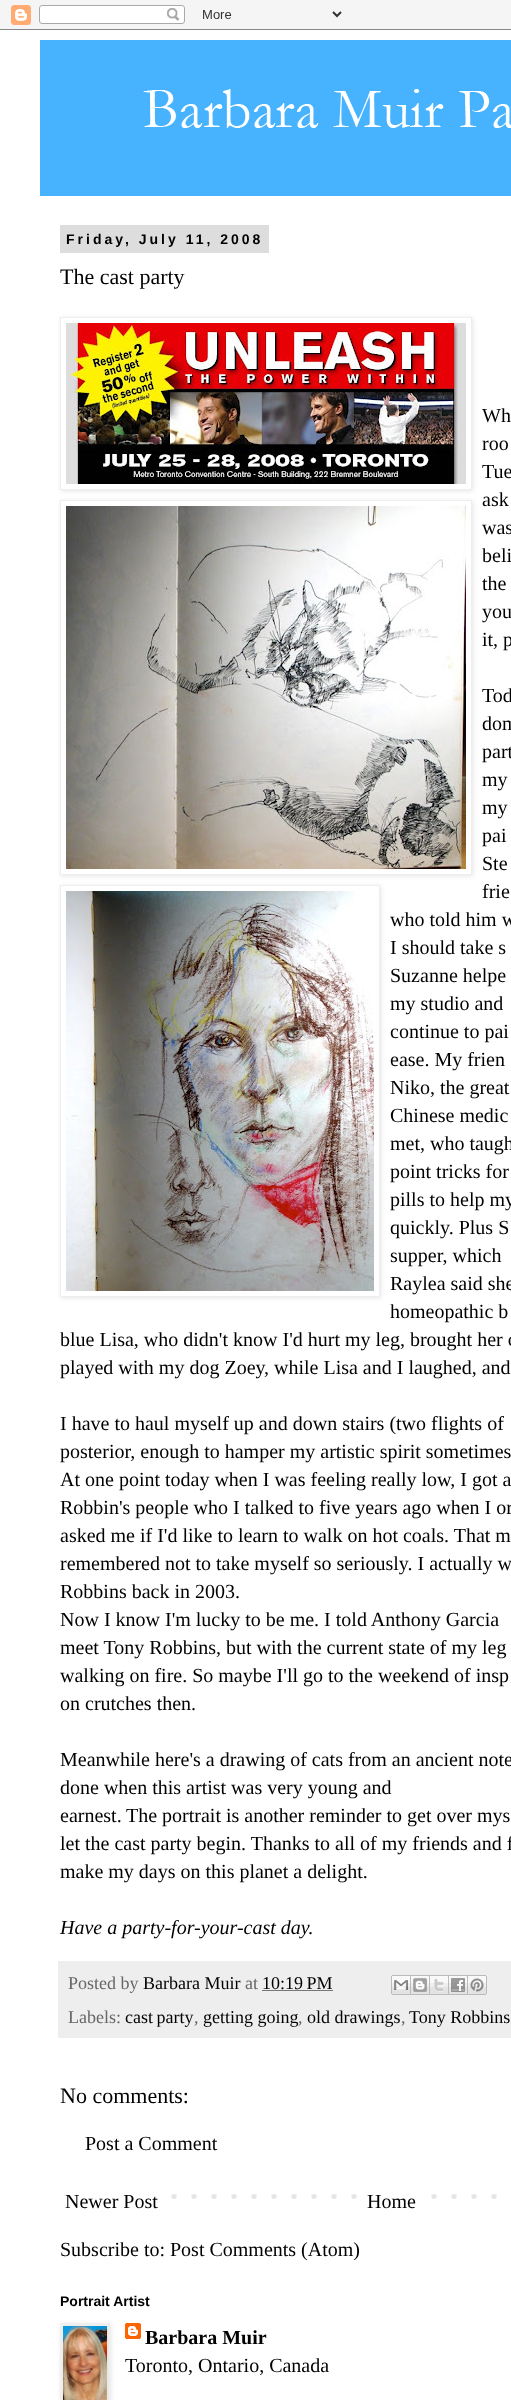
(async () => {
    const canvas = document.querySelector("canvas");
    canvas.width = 511;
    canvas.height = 2400;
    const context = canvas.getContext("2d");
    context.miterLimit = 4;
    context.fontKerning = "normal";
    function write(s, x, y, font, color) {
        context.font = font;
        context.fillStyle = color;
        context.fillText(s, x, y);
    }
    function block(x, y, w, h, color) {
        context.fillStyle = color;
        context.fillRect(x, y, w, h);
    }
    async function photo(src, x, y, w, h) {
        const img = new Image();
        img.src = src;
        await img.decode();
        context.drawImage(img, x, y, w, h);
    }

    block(0, 0, 511, 2400, "rgb(238, 238, 238)");
    await photo("media/1.png", 0, 0, 511, 30);
    block(0, 30, 511, 2370, "rgb(255, 255, 255)");
    await photo("media/2.png", 40, 40, 471, 156);
    block(60, 225, 209, 28, "rgb(221, 221, 221)");
    context.letterSpacing = "3px";
    write("Friday, July 11, 2008", 66, 244, "bold 14px Liberation Sans", "rgb(0, 0, 0)");
    context.letterSpacing = "0px";
    write("The cast party", 60, 284, "22px Tinos", "rgb(0, 0, 0)");
    context.save();
    context.beginPath();
    context.moveTo(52, 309);
    context.lineTo(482, 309);
    context.lineTo(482, 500);
    context.lineTo(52, 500);
    context.closePath();
    context.moveTo(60, 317);
    context.lineTo(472, 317);
    context.lineTo(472, 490);
    context.lineTo(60, 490);
    context.closePath();
    context.clip("evenodd");
    context.fillStyle = "rgba(0, 0, 0, 0.1)";
    context.filter = "blur(2.5px)";
    context.beginPath();
    context.rect(61, 318, 412, 173);
    context.fill();
    context.filter = "none";
    context.restore();
    context.strokeStyle = "rgb(238, 238, 238)";
    context.strokeRect(60.5, 317.5, 411, 172);
    await photo("media/3.png", 66, 323, 400, 161);
    write("Wh", 482, 422, "20px Liberation Serif", "rgb(0, 0, 0)");
    write("roo", 482, 450, "20px Liberation Serif", "rgb(0, 0, 0)");
    write("Tue", 482, 478, "20px Liberation Serif", "rgb(0, 0, 0)");
    context.save();
    context.beginPath();
    context.moveTo(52, 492);
    context.lineTo(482, 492);
    context.lineTo(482, 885);
    context.lineTo(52, 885);
    context.closePath();
    context.moveTo(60, 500);
    context.lineTo(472, 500);
    context.lineTo(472, 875);
    context.lineTo(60, 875);
    context.closePath();
    context.clip("evenodd");
    context.fillStyle = "rgba(0, 0, 0, 0.1)";
    context.filter = "blur(2.5px)";
    context.beginPath();
    context.rect(61, 501, 412, 375);
    context.fill();
    context.filter = "none";
    context.restore();
    context.strokeRect(60.5, 500.5, 411, 374);
    await photo("media/4.png", 66, 506, 400, 363);
    write("ask", 482, 506, "20px Liberation Serif", "rgb(0, 0, 0)");
    write("was", 482, 534, "20px Liberation Serif", "rgb(0, 0, 0)");
    write("beli", 482, 562, "20px Liberation Serif", "rgb(0, 0, 0)");
    write("the", 482, 590, "20px Liberation Serif", "rgb(0, 0, 0)");
    write("you", 482, 618, "20px Liberation Serif", "rgb(0, 0, 0)");
    write("it, p", 482, 646, "20px Liberation Serif", "rgb(0, 0, 0)");
    write("Tod", 482, 702, "20px Liberation Serif", "rgb(0, 0, 0)");
    write("dom", 482, 730, "20px Liberation Serif", "rgb(0, 0, 0)");
    write("part", 482, 758, "20px Liberation Serif", "rgb(0, 0, 0)");
    write("my", 482, 786, "20px Liberation Serif", "rgb(0, 0, 0)");
    write("my", 482, 814, "20px Liberation Serif", "rgb(0, 0, 0)");
    write("pai", 482, 842, "20px Liberation Serif", "rgb(0, 0, 0)");
    write("Ste", 482, 870, "20px Liberation Serif", "rgb(0, 0, 0)");
    context.save();
    context.beginPath();
    context.moveTo(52, 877);
    context.lineTo(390, 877);
    context.lineTo(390, 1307);
    context.lineTo(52, 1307);
    context.closePath();
    context.moveTo(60, 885);
    context.lineTo(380, 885);
    context.lineTo(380, 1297);
    context.lineTo(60, 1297);
    context.closePath();
    context.clip("evenodd");
    context.fillStyle = "rgba(0, 0, 0, 0.1)";
    context.filter = "blur(2.5px)";
    context.beginPath();
    context.rect(61, 886, 320, 412);
    context.fill();
    context.filter = "none";
    context.restore();
    context.strokeRect(60.5, 885.5, 319, 411);
    await photo("media/5.png", 66, 891, 308, 400);
    write("frie", 482, 898, "20px Liberation Serif", "rgb(0, 0, 0)");
    write("who told him w", 390, 926, "20px Liberation Serif", "rgb(0, 0, 0)");
    write("I should take s", 390, 954, "20px Liberation Serif", "rgb(0, 0, 0)");
    write("Suzanne helpe", 390, 982, "20px Liberation Serif", "rgb(0, 0, 0)");
    write("my studio and", 390, 1010, "20px Liberation Serif", "rgb(0, 0, 0)");
    write("continue to pai", 390, 1038, "20px Liberation Serif", "rgb(0, 0, 0)");
    write("ease. My frien", 390, 1066, "20px Liberation Serif", "rgb(0, 0, 0)");
    write("Niko, the great", 390, 1094, "20px Liberation Serif", "rgb(0, 0, 0)");
    write("Chinese medic", 390, 1122, "20px Liberation Serif", "rgb(0, 0, 0)");
    write("met, who taugh", 390, 1150, "20px Liberation Serif", "rgb(0, 0, 0)");
    write("point tricks for", 390, 1178, "20px Liberation Serif", "rgb(0, 0, 0)");
    write("pills to help my", 390, 1206, "20px Liberation Serif", "rgb(0, 0, 0)");
    write("quickly. Plus S", 390, 1234, "20px Liberation Serif", "rgb(0, 0, 0)");
    write("supper, which", 390, 1262, "20px Liberation Serif", "rgb(0, 0, 0)");
    write("Raylea said she", 390, 1290, "20px Liberation Serif", "rgb(0, 0, 0)");
    write("homeopathic b", 390, 1318, "20px Liberation Serif", "rgb(0, 0, 0)");
    write("blue Lisa, who didn't know I'd hurt my leg, brought her c", 60, 1346, "20px Liberation Serif", "rgb(0, 0, 0)");
    write("played with my dog Zoey", 60, 1374, "20px Liberation Serif", "rgb(0, 0, 0)");
    write(", while Lisa and I laughed, and", 264, 1374, "20px Liberation Serif", "rgb(0, 0, 0)");
    write("I have to haul myself up and down stairs (two flights of", 60, 1430, "20px Liberation Serif", "rgb(0, 0, 0)");
    write("posterior, enough to hamper my artistic spirit sometimes", 60, 1458, "20px Liberation Serif", "rgb(0, 0, 0)");
    write("At one point today when I was feeling really low, I got a", 60, 1486, "20px Liberation Serif", "rgb(0, 0, 0)");
    write("Robbin's people who I talked to five years ago when I or", 60, 1514, "20px Liberation Serif", "rgb(0, 0, 0)");
    write("asked me if I'd like to learn to walk on hot coals. That m", 60, 1542, "20px Liberation Serif", "rgb(0, 0, 0)");
    write("remembered not to take myself so seriously. I actually w", 60, 1570, "20px Liberation Serif", "rgb(0, 0, 0)");
    write("Robbins back in 2003.", 60, 1598, "20px Liberation Serif", "rgb(0, 0, 0)");
    write("Now I know I'm lucky to be me. I told Anthony Garcia", 60, 1626, "20px Liberation Serif", "rgb(0, 0, 0)");
    write("meet Tony Robbins, but with the current state of my leg", 60, 1654, "20px Liberation Serif", "rgb(0, 0, 0)");
    write("walking on fire. So maybe I'll go to the weekend of insp", 60, 1682, "20px Liberation Serif", "rgb(0, 0, 0)");
    write("on crutches then.", 60, 1710, "20px Liberation Serif", "rgb(0, 0, 0)");
    write("Meanwhile here's a drawing of cats from an ancient note", 60, 1766, "20px Liberation Serif", "rgb(0, 0, 0)");
    write("done when this artist was very young and", 60, 1794, "20px Liberation Serif", "rgb(0, 0, 0)");
    write("earnest.", 60, 1822, "20px Liberation Serif", "rgb(0, 0, 0)");
    write("The portrait is another reminder to get over mys", 126, 1822, "20px Liberation Serif", "rgb(0, 0, 0)");
    write("let the cast party begin. Thanks to all of my friends and f", 60, 1850, "20px Liberation Serif", "rgb(0, 0, 0)");
    write("make my days on this planet a delight.", 60, 1878, "20px Liberation Serif", "rgb(0, 0, 0)");
    write("Have a party-for-your-cast day.", 60, 1934, "italic 20px Liberation Serif", "rgb(0, 0, 0)");
    block(58, 1961, 453, 77, "rgb(238, 238, 238)");
    write("Posted by", 68, 1989, "18px Liberation Serif", "rgb(102, 102, 102)");
    write("Barbara Muir", 143, 1989, "18px Liberation Serif", "rgb(0, 0, 0)");
    write("at", 245, 1989, "18px Liberation Serif", "rgb(102, 102, 102)");
    write("10:19 PM", 262, 1989, "18px Liberation Serif", "rgb(0, 0, 0)");
    context.beginPath();
    context.moveTo(262.5, 1990.5);
    context.lineTo(333, 1990.5);
    context.strokeStyle = "rgb(0, 0, 0)";
    context.setLineDash([1, 1]);
    context.stroke();
    await photo("media/6.png", 391, 1975, 20, 20);
    await photo("media/7.png", 411, 1975, 19, 20);
    await photo("media/8.png", 430, 1975, 19, 20);
    await photo("media/9.png", 449, 1975, 19, 20);
    await photo("media/10.png", 468, 1975, 19, 20);
    write("Labels:", 68, 2023, "18px Liberation Serif", "rgb(102, 102, 102)");
    context.wordSpacing = "-1px";
    write("cast party", 125, 2023, "18px Liberation Serif", "rgb(0, 0, 0)");
    context.wordSpacing = "0px";
    write(",", 194, 2023, "18px Liberation Serif", "rgb(102, 102, 102)");
    write("getting going", 203, 2023, "18px Liberation Serif", "rgb(0, 0, 0)");
    write(",", 298, 2023, "18px Liberation Serif", "rgb(102, 102, 102)");
    write("old drawings", 307, 2023, "18px Liberation Serif", "rgb(0, 0, 0)");
    write(",", 401, 2023, "18px Liberation Serif", "rgb(102, 102, 102)");
    write("Tony Robbins", 409, 2023, "18px Liberation Serif", "rgb(0, 0, 0)");
    write("No comments:", 60, 2103, "22px Tinos", "rgb(0, 0, 0)");
    write("Post a Comment", 85, 2150, "20px Liberation Serif", "rgb(0, 0, 0)");
    await photo("media/11.png", 171, 2194, 326, 5);
    write("Newer Post", 65, 2208, "20px Liberation Serif", "rgb(0, 0, 0)");
    block(371, 2194, 46, 5, "rgb(255, 255, 255)");
    write("Home", 367, 2208, "20px Liberation Serif", "rgb(0, 0, 0)");
    write("Subscribe to: Post Comments (Atom)", 60, 2256, "20px Liberation Serif", "rgb(0, 0, 0)");
    write("Portrait Artist", 60, 2306, "bold 14px Liberation Sans", "rgb(0, 0, 0)");
    context.fillStyle = "rgba(0, 0, 0, 0.1)";
    context.filter = "blur(2.5px)";
    context.beginPath();
    context.rect(61, 2324, 50, 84);
    context.fill();
    context.filter = "none";
    context.strokeStyle = "rgb(238, 238, 238)";
    context.setLineDash([]);
    context.strokeRect(60.5, 2323.5, 49, 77);
    await photo("media/12.png", 63, 2326, 44, 74);
    await photo("media/13.png", 125, 2323, 16, 16);
    write("Barbara Muir", 145, 2344, "bold 20px Liberation Serif", "rgb(0, 0, 0)");
    write("Toronto, Ontario, Canada", 125, 2372, "20px Liberation Serif", "rgb(0, 0, 0)");
})();
